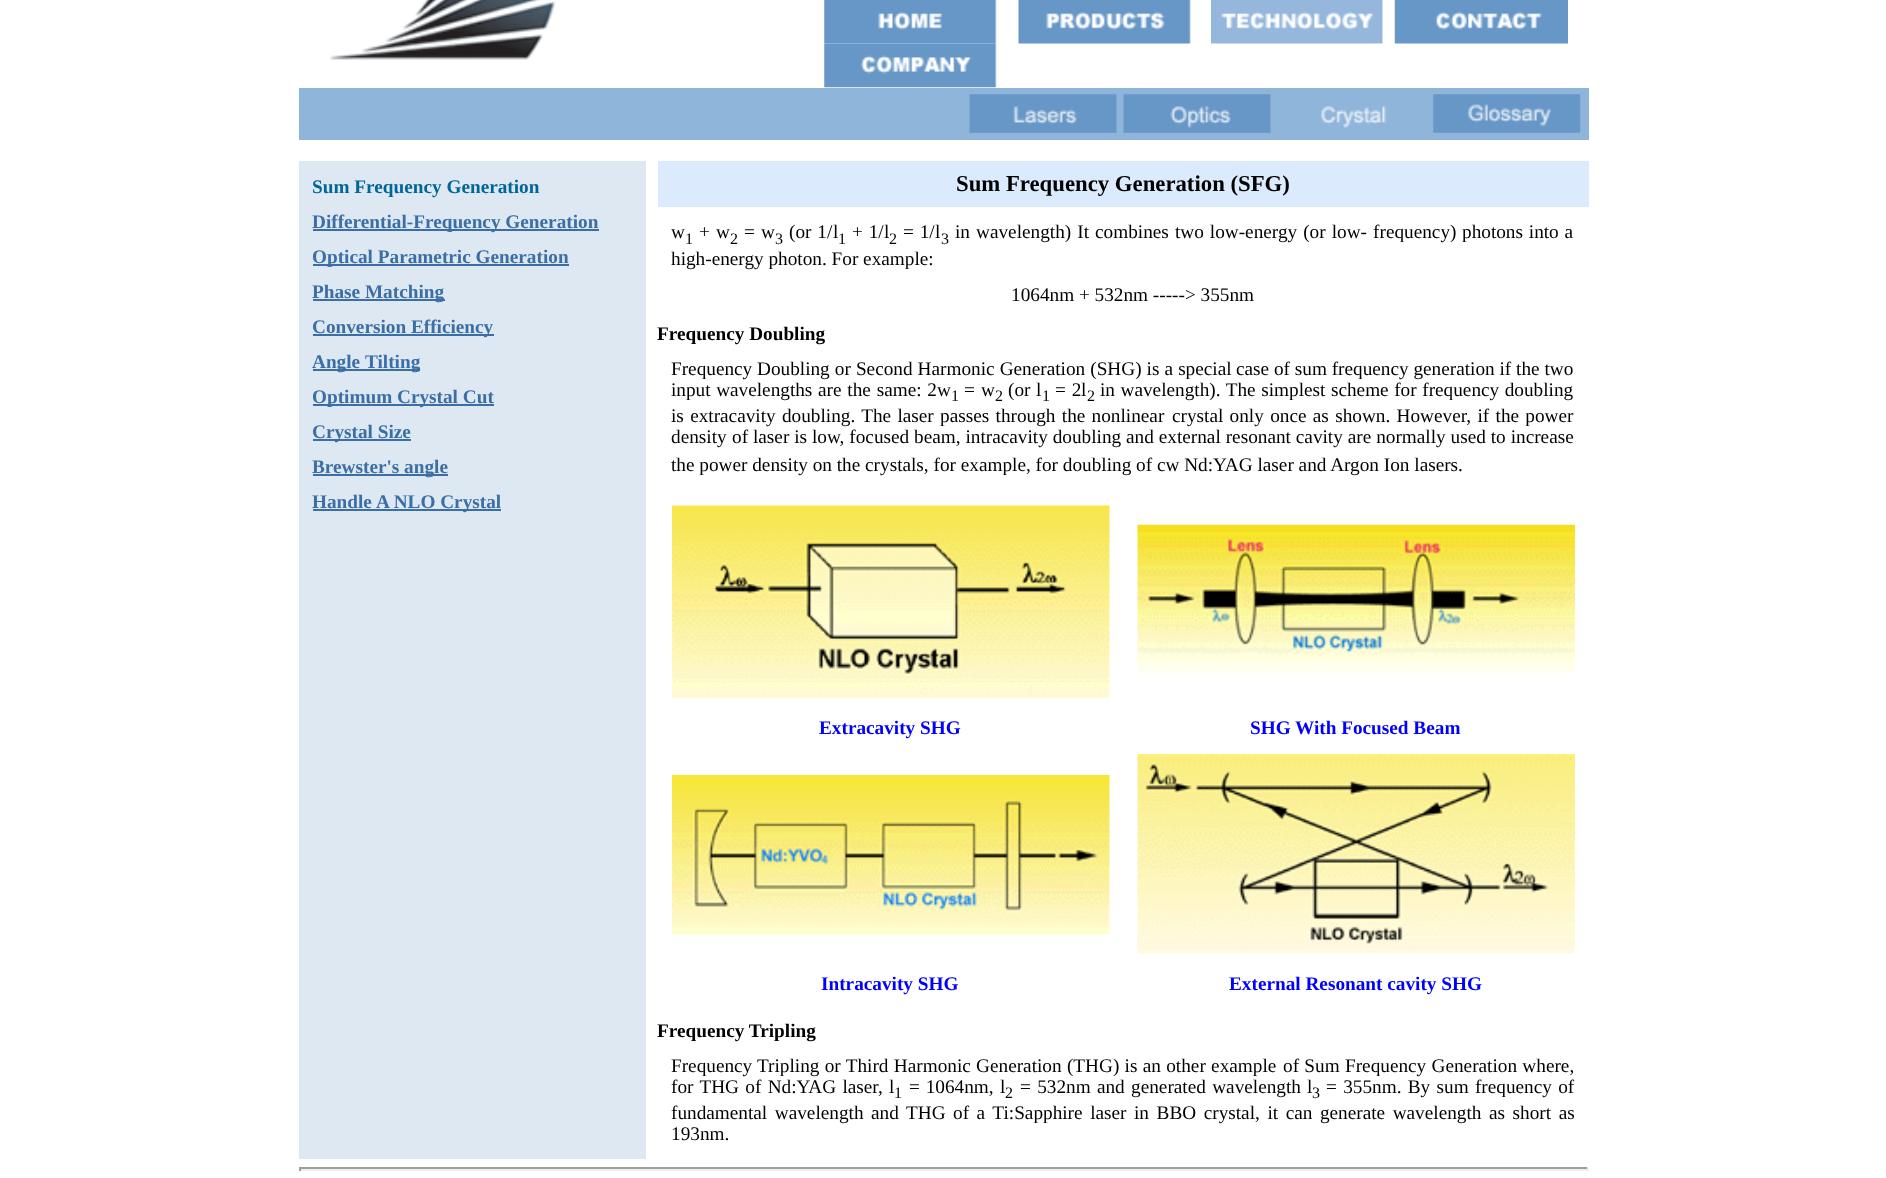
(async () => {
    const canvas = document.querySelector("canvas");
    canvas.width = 1886;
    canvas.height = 1178;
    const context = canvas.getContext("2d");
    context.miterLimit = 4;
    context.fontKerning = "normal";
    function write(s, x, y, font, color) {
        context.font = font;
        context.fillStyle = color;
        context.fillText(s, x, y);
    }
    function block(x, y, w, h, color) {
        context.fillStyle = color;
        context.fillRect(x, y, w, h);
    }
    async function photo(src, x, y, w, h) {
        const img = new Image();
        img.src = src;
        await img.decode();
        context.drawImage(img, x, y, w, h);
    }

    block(0, 0, 1886, 1178, "rgb(255, 255, 255)");
    await photo("media/1.png", 329, 0, 227, 61);
    await photo("media/2.png", 824, 0, 173, 44);
    await photo("media/3.png", 824, 43, 173, 45);
    await photo("media/4.png", 1018, 0, 173, 44);
    await photo("media/5.png", 1211, 0, 172, 44);
    await photo("media/6.png", 1394, 0, 174, 44);
    block(299, 88, 1290, 52, "rgb(143, 181, 218)");
    await photo("media/7.png", 969, 94, 148, 39);
    await photo("media/8.png", 1123, 94, 148, 39);
    await photo("media/9.png", 1321, 106, 66, 22);
    await photo("media/10.png", 1433, 94, 148, 39);
    block(299, 161, 347, 998, "rgb(221, 232, 242)");
    write("Sum Frequency Generation", 312, 193, "bold 19.25px Liberation Serif", "rgb(0, 102, 153)");
    block(313, 229, 286, 2, "rgb(58, 110, 165)");
    write("Differential-Frequency Generation", 312, 228, "bold 19.25px Liberation Serif", "rgb(58, 110, 165)");
    block(313, 264, 256, 2, "rgb(58, 110, 165)");
    write("Optical Parametric Generation", 312, 263, "bold 19.25px Liberation Serif", "rgb(58, 110, 165)");
    block(313, 299, 132, 2, "rgb(58, 110, 165)");
    write("Phase Matching", 312, 298, "bold 19.25px Liberation Serif", "rgb(58, 110, 165)");
    block(313, 334, 181, 2, "rgb(58, 110, 165)");
    write("Conversion Efficiency", 312, 333, "bold 19.25px Liberation Serif", "rgb(58, 110, 165)");
    block(313, 369, 107, 2, "rgb(58, 110, 165)");
    write("Angle", 312, 368, "bold 19.25px Liberation Serif", "rgb(58, 110, 165)");
    write("Tilting", 365, 368, "bold 19.25px Liberation Serif", "rgb(58, 110, 165)");
    block(313, 404, 181, 2, "rgb(58, 110, 165)");
    write("Optimum Crystal Cut", 312, 403, "bold 19.25px Liberation Serif", "rgb(58, 110, 165)");
    block(313, 439, 98, 2, "rgb(58, 110, 165)");
    write("Crystal Size", 312, 438, "bold 19.25px Liberation Serif", "rgb(58, 110, 165)");
    block(313, 474, 135, 2, "rgb(58, 110, 165)");
    write("Brewster's angle", 312, 473, "bold 19.25px Liberation Serif", "rgb(58, 110, 165)");
    write("Handle", 312, 508, "bold 19.25px Liberation Serif", "rgb(58, 110, 165)");
    block(313, 509, 188, 2, "rgb(58, 110, 165)");
    write("A NLO Crystal", 376, 508, "bold 19.25px Liberation Serif", "rgb(58, 110, 165)");
    block(658, 161, 931, 46, "rgb(219, 235, 253)");
    write("Sum Frequency Generation (SFG)", 956, 191, "bold 22.75px Liberation Serif", "rgb(0, 0, 0)");
    write("w", 671, 238, "19.25px Liberation Serif", "rgb(0, 0, 0)");
    write("1", 685, 244, "16px Liberation Serif", "rgb(0, 0, 0)");
    write("+", 699, 238, "19.25px Liberation Serif", "rgb(0, 0, 0)");
    write("w", 716, 238, "19.25px Liberation Serif", "rgb(0, 0, 0)");
    write("2", 730, 244, "16px Liberation Serif", "rgb(0, 0, 0)");
    write("=", 744, 238, "19.25px Liberation Serif", "rgb(0, 0, 0)");
    write("w", 761, 238, "19.25px Liberation Serif", "rgb(0, 0, 0)");
    write("3", 775, 244, "16px Liberation Serif", "rgb(0, 0, 0)");
    context.wordSpacing = "1px";
    write("(or 1/", 789, 238, "19.25px Liberation Serif", "rgb(0, 0, 0)");
    context.wordSpacing = "0px";
    write("l", 833, 238, "19.25px Liberation Serif", "rgb(0, 0, 0)");
    write("1", 838, 244, "16px Liberation Serif", "rgb(0, 0, 0)");
    context.wordSpacing = "1px";
    write("+ 1/", 852, 238, "19.25px Liberation Serif", "rgb(0, 0, 0)");
    context.wordSpacing = "0px";
    write("l", 884, 238, "19.25px Liberation Serif", "rgb(0, 0, 0)");
    write("2", 889, 244, "16px Liberation Serif", "rgb(0, 0, 0)");
    context.wordSpacing = "1px";
    write("= 1/", 903, 238, "19.25px Liberation Serif", "rgb(0, 0, 0)");
    context.wordSpacing = "0px";
    write("l", 935, 238, "19.25px Liberation Serif", "rgb(0, 0, 0)");
    write("3", 941, 244, "16px Liberation Serif", "rgb(0, 0, 0)");
    context.wordSpacing = "1.25px";
    write("in wavelength) It combines two low-energy (or low- frequency)", 955, 238, "19.25px Liberation Serif", "rgb(0, 0, 0)");
    context.wordSpacing = "1px";
    write("photons into a", 1462, 238, "19.25px Liberation Serif", "rgb(0, 0, 0)");
    context.wordSpacing = "0px";
    write("high-energy photon. For example:", 671, 265, "19.25px Liberation Serif", "rgb(0, 0, 0)");
    write("1064nm + 532nm -----> 355nm", 1011, 301, "19.25px Liberation Serif", "rgb(0, 0, 0)");
    write("Frequency Doubling", 657, 340, "bold 19.25px Liberation Serif", "rgb(0, 0, 0)");
    write("Frequency", 671, 375, "19.25px Liberation Serif", "rgb(0, 0, 0)");
    context.wordSpacing = "0.25px";
    write("Doubling or Second Harmonic Generation (SHG) is a special", 757, 375, "19.25px Liberation Serif", "rgb(0, 0, 0)");
    context.wordSpacing = "0px";
    write("case of sum frequency generation if the two", 1236, 375, "19.25px Liberation Serif", "rgb(0, 0, 0)");
    context.wordSpacing = "0.75px";
    write("input wavelengths", 671, 396, "19.25px Liberation Serif", "rgb(0, 0, 0)");
    context.wordSpacing = "1px";
    write("are the same: 2", 818, 396, "19.25px Liberation Serif", "rgb(0, 0, 0)");
    context.wordSpacing = "0px";
    write("w", 937, 396, "19.25px Liberation Serif", "rgb(0, 0, 0)");
    write("1", 951, 401, "16px Liberation Serif", "rgb(0, 0, 0)");
    write("=", 964, 396, "19.25px Liberation Serif", "rgb(0, 0, 0)");
    write("w", 981, 396, "19.25px Liberation Serif", "rgb(0, 0, 0)");
    write("2", 995, 401, "16px Liberation Serif", "rgb(0, 0, 0)");
    write("(or", 1008, 396, "19.25px Liberation Serif", "rgb(0, 0, 0)");
    write("l", 1036, 396, "19.25px Liberation Serif", "rgb(0, 0, 0)");
    write("1", 1042, 401, "16px Liberation Serif", "rgb(0, 0, 0)");
    context.wordSpacing = "1px";
    write("= 2", 1055, 396, "19.25px Liberation Serif", "rgb(0, 0, 0)");
    context.wordSpacing = "0px";
    write("l", 1081, 396, "19.25px Liberation Serif", "rgb(0, 0, 0)");
    write("2", 1087, 401, "16px Liberation Serif", "rgb(0, 0, 0)");
    context.wordSpacing = "0.75px";
    write("in wavelength). The simplest scheme for frequency doubling", 1100, 396, "19.25px Liberation Serif", "rgb(0, 0, 0)");
    context.wordSpacing = "1.5px";
    write("is extracavity doubling. The laser passes through the nonlinear", 671, 422, "19.25px Liberation Serif", "rgb(0, 0, 0)");
    write("crystal only once as shown. However, if the power", 1172, 422, "19.25px Liberation Serif", "rgb(0, 0, 0)");
    context.wordSpacing = "0px";
    write("density", 671, 443, "19.25px Liberation Serif", "rgb(0, 0, 0)");
    context.wordSpacing = "0.1px";
    write("of laser is low, focused beam, intracavity doubling and external resonant cavity are normally used to increase", 732, 443, "19.25px Liberation Serif", "rgb(0, 0, 0)");
    context.wordSpacing = "0px";
    write("the power density on the crystals, for example, for doubling of cw Nd:YAG laser and Argon Ion lasers.", 671, 471, "19.25px Liberation Serif", "rgb(0, 0, 0)");
    await photo("media/11.png", 672, 505, 438, 193);
    await photo("media/12.png", 1137, 524, 438, 153);
    write("Extracavity SHG", 819, 734, "bold 19.25px Liberation Serif", "rgb(0, 0, 255)");
    write("SHG", 1250, 734, "bold 19.25px Liberation Serif", "rgb(0, 0, 255)");
    write("With Focused Beam", 1295, 734, "bold 19.25px Liberation Serif", "rgb(0, 0, 255)");
    await photo("media/13.png", 672, 775, 438, 160);
    await photo("media/14.png", 1137, 754, 438, 200);
    write("Intracavity SHG", 821, 990, "bold 19.25px Liberation Serif", "rgb(0, 0, 255)");
    write("External Resonant cavity SHG", 1229, 990, "bold 19.25px Liberation Serif", "rgb(0, 0, 255)");
    write("Frequency Tripling", 657, 1037, "bold 19.25px Liberation Serif", "rgb(0, 0, 0)");
    write("Frequency", 671, 1072, "19.25px Liberation Serif", "rgb(0, 0, 0)");
    context.wordSpacing = "0.5px";
    write("Tripling or Third Harmonic Generation (THG) is an other example", 757, 1072, "19.25px Liberation Serif", "rgb(0, 0, 0)");
    write("of Sum Frequency Generation where,", 1283, 1072, "19.25px Liberation Serif", "rgb(0, 0, 0)");
    context.wordSpacing = "1.5px";
    write("for THG of Nd:YAG laser,", 671, 1093, "19.25px Liberation Serif", "rgb(0, 0, 0)");
    context.wordSpacing = "0px";
    write("l", 889, 1093, "19.25px Liberation Serif", "rgb(0, 0, 0)");
    write("1", 894, 1098, "16px Liberation Serif", "rgb(0, 0, 0)");
    context.wordSpacing = "1px";
    write("= 1064nm,", 909, 1093, "19.25px Liberation Serif", "rgb(0, 0, 0)");
    context.wordSpacing = "0px";
    write("l", 1000, 1093, "19.25px Liberation Serif", "rgb(0, 0, 0)");
    write("2", 1005, 1098, "16px Liberation Serif", "rgb(0, 0, 0)");
    context.wordSpacing = "1.5px";
    write("= 532nm and generated wavelength", 1020, 1093, "19.25px Liberation Serif", "rgb(0, 0, 0)");
    context.wordSpacing = "0px";
    write("l", 1307, 1093, "19.25px Liberation Serif", "rgb(0, 0, 0)");
    write("3", 1312, 1098, "16px Liberation Serif", "rgb(0, 0, 0)");
    context.wordSpacing = "1.5px";
    write("= 355nm. By sum frequency of", 1326, 1093, "19.25px Liberation Serif", "rgb(0, 0, 0)");
    context.wordSpacing = "2.75px";
    write("fundamental wavelength and THG", 671, 1119, "19.25px Liberation Serif", "rgb(0, 0, 0)");
    write("of a Ti:Sapphire laser in BBO crystal, it can generate wavelength", 953, 1119, "19.25px Liberation Serif", "rgb(0, 0, 0)");
    write("as short as", 1489, 1119, "19.25px Liberation Serif", "rgb(0, 0, 0)");
    context.wordSpacing = "0px";
    write("193nm.", 671, 1140, "19.25px Liberation Serif", "rgb(0, 0, 0)");
    block(299, 1167, 1290, 2, "rgb(159, 159, 159)");
    block(1587, 1167, 2, 4, "rgb(238, 238, 238)");
    block(299, 1169, 1290, 2, "rgb(238, 238, 238)");
    block(299, 1167, 2, 4, "rgb(159, 159, 159)");
})();
